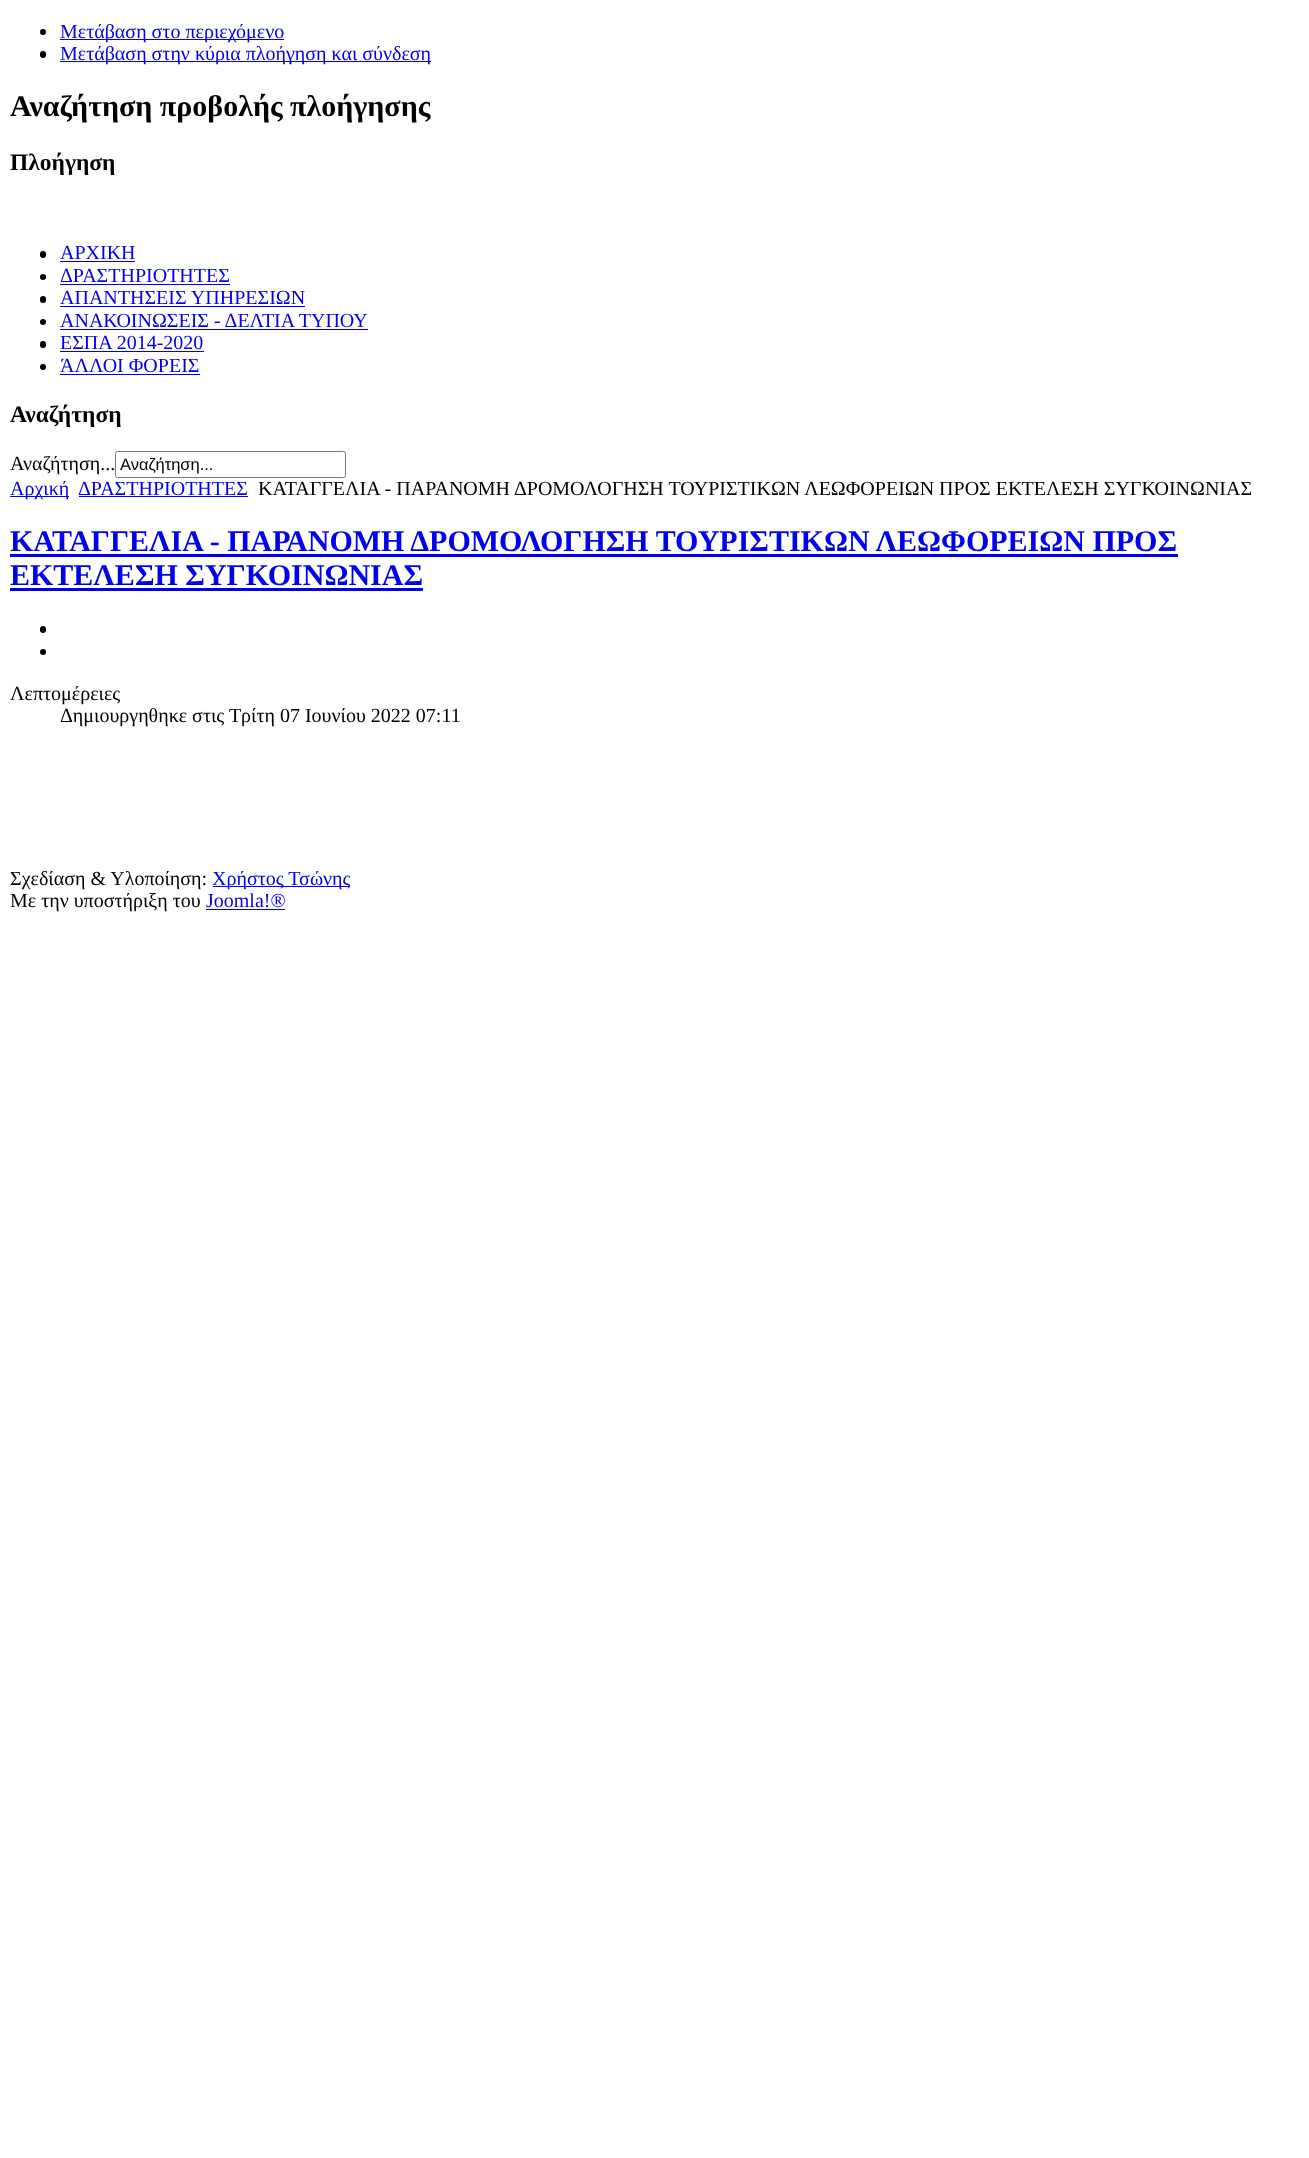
(async () => {
    const canvas = document.querySelector("canvas");
    canvas.width = 1309;
    canvas.height = 2158;
    const context = canvas.getContext("2d");
    context.miterLimit = 4;
    context.fontKerning = "normal";
    function write(s, x, y, font, color) {
        context.font = font;
        context.fillStyle = color;
        context.fillText(s, x, y);
    }
    function block(x, y, w, h, color) {
        context.fillStyle = color;
        context.fillRect(x, y, w, h);
    }
    function card(x, y, w, h, r, color) {
        context.fillStyle = color;
        context.beginPath();
        context.roundRect(x, y, w, h, r);
        context.fill();
    }

    block(0, 0, 1309, 2158, "rgb(255, 255, 255)");
    context.fillStyle = "rgb(0, 0, 0)";
    context.beginPath();
    context.arc(43, 32, 3, 0, Math.PI * 2);
    context.fill();
    block(60, 39, 224, 1, "rgb(0, 0, 238)");
    write("Μετάβαση στο περιεχόμενο", 60, 38, "20px Liberation Serif", "rgb(0, 0, 238)");
    card(40, 51, 6, 7, 3, "rgb(0, 0, 0)");
    block(60, 61, 371, 1, "rgb(0, 0, 238)");
    write("Μετάβαση στην κύρια πλοήγηση και σύνδεση", 60, 60, "20px Liberation Serif", "rgb(0, 0, 238)");
    write("Αναζήτηση προβολής πλοήγησης", 10, 116, "bold 30px Liberation Serif", "rgb(0, 0, 0)");
    write("Πλοήγηση", 10, 170, "bold 23.5px Liberation Serif", "rgb(0, 0, 0)");
    card(40, 251, 6, 7, 3, "rgb(0, 0, 0)");
    write("ΑΡΧΙΚΗ", 60, 259, "20px Liberation Serif", "rgb(0, 0, 238)");
    block(60, 261, 75, 1, "rgb(0, 0, 238)");
    context.fillStyle = "rgb(0, 0, 0)";
    context.beginPath();
    context.arc(43, 277, 3, 0, Math.PI * 2);
    context.fill();
    write("ΔΡΑΣΤΗΡΙΟΤΗΤΕΣ", 60, 282, "20px Liberation Serif", "rgb(0, 0, 238)");
    block(60, 284, 170, 1, "rgb(0, 0, 238)");
    card(40, 296, 6, 7, 3, "rgb(0, 0, 0)");
    write("ΑΠΑΝΤΗΣΕΙΣ ΥΠΗΡΕΣΙΩΝ", 60, 304, "20px Liberation Serif", "rgb(0, 0, 238)");
    block(60, 306, 245, 1, "rgb(0, 0, 238)");
    context.fillStyle = "rgb(0, 0, 0)";
    context.beginPath();
    context.arc(43, 322, 3, 0, Math.PI * 2);
    context.fill();
    write("ΑΝΑΚΟΙΝΩΣΕΙΣ - ΔΕΛΤΙΑ ΤΥΠΟΥ", 60, 327, "20px Liberation Serif", "rgb(0, 0, 238)");
    block(60, 329, 308, 1, "rgb(0, 0, 238)");
    card(40, 341, 6, 7, 3, "rgb(0, 0, 0)");
    write("ΕΣΠΑ 2014-2020", 60, 349, "20px Liberation Serif", "rgb(0, 0, 238)");
    block(60, 351, 144, 1, "rgb(0, 0, 238)");
    context.fillStyle = "rgb(0, 0, 0)";
    context.beginPath();
    context.arc(43, 367, 3, 0, Math.PI * 2);
    context.fill();
    write("ΆΛΛΟΙ ΦΟΡΕΙΣ", 60, 372, "20px Liberation Serif", "rgb(0, 0, 238)");
    block(60, 374, 140, 1, "rgb(0, 0, 238)");
    write("Αναζήτηση", 10, 422, "bold 23.5px Liberation Serif", "rgb(0, 0, 0)");
    write("Αναζήτηση...", 10, 470, "20px Liberation Serif", "rgb(0, 0, 0)");
    context.beginPath();
    context.roundRect(115.5, 451.5, 230, 26, 2);
    context.strokeStyle = "rgb(118, 118, 118)";
    context.stroke();
    write("Αναζήτηση...", 120, 470, "16.5px Liberation Sans", "rgb(0, 0, 0)");
    block(10, 496, 59, 1, "rgb(0, 0, 238)");
    write("Αρχική", 10, 495, "20px Liberation Serif", "rgb(0, 0, 238)");
    write("ΔΡΑΣΤΗΡΙΟΤΗΤΕΣ", 78, 495, "20px Liberation Serif", "rgb(0, 0, 238)");
    block(79, 496, 169, 1, "rgb(0, 0, 238)");
    write("ΚΑΤΑΓΓΕΛΙΑ - ΠΑΡΑΝΟΜΗ ΔΡΟΜΟΛΟΓΗΣΗ ΤΟΥΡΙΣΤΙΚΩΝ ΛΕΩΦΟΡΕΙΩΝ ΠΡΟΣ ΕΚΤΕΛΕΣΗ ΣΥΓΚΟΙΝΩΝΙΑΣ", 258, 495, "20px Liberation Serif", "rgb(0, 0, 0)");
    write("ΚΑΤΑΓΓΕΛΙΑ - ΠΑΡΑΝΟΜΗ ΔΡΟΜΟΛΟΓΗΣΗ ΤΟΥΡΙΣΤΙΚΩΝ ΛΕΩΦΟΡΕΙΩΝ ΠΡΟΣ", 10, 551, "bold 30px Liberation Serif", "rgb(0, 0, 238)");
    block(10, 554, 1168, 3, "rgb(0, 0, 238)");
    write("ΕΚΤΕΛΕΣΗ ΣΥΓΚΟΙΝΩΝΙΑΣ", 10, 585, "bold 30px Liberation Serif", "rgb(0, 0, 238)");
    block(10, 588, 413, 3, "rgb(0, 0, 238)");
    card(40, 626, 6, 7, 3, "rgb(0, 0, 0)");
    context.beginPath();
    context.arc(43, 652, 3, 0, Math.PI * 2);
    context.fill();
    write("Λεπτομέρειες", 10, 700, "20px Liberation Serif", "rgb(0, 0, 0)");
    write("Δημιουργηθηκε στις Τρίτη 07 Ιουνίου 2022 07:11", 60, 722, "20px Liberation Serif", "rgb(0, 0, 0)");
    write("Σχεδίαση & Υλοποίηση:", 10, 885, "20px Liberation Serif", "rgb(0, 0, 0)");
    block(213, 886, 137, 1, "rgb(0, 0, 238)");
    write("Χρήστος Τσώνης", 212, 885, "20px Liberation Serif", "rgb(0, 0, 238)");
    write("Με την υποστήριξη του", 10, 907, "20px Liberation Serif", "rgb(0, 0, 0)");
    write("Joomla!®", 206, 907, "20px Liberation Serif", "rgb(0, 0, 238)");
    block(206, 909, 79, 1, "rgb(0, 0, 238)");
})();
